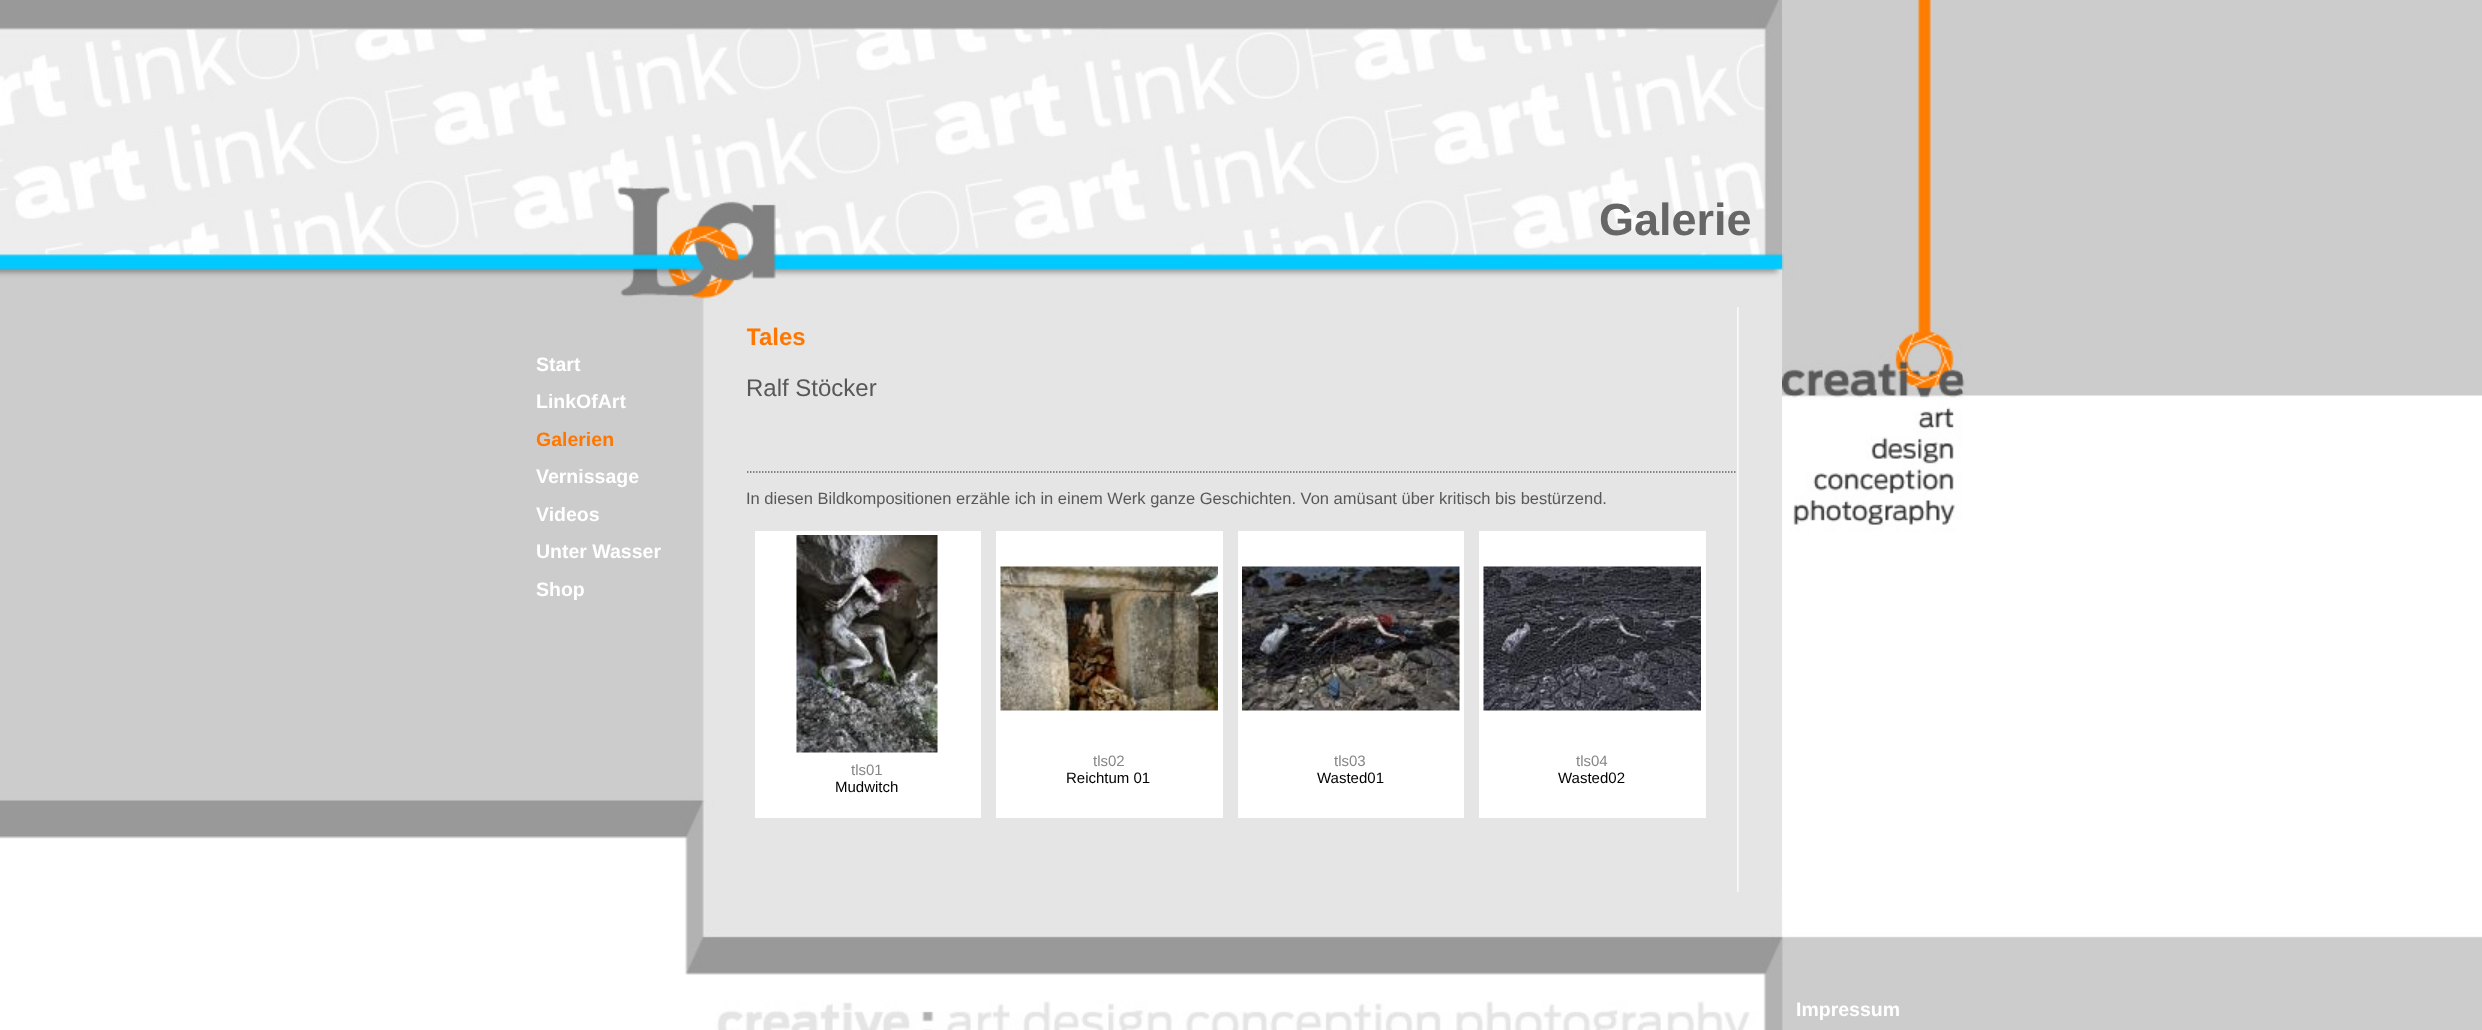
(async () => {
    const canvas = document.querySelector("canvas");
    canvas.width = 2482;
    canvas.height = 1030;
    const context = canvas.getContext("2d");
    context.miterLimit = 4;
    context.fontKerning = "normal";
    function write(s, x, y, font, color) {
        context.font = font;
        context.fillStyle = color;
        context.fillText(s, x, y);
    }
    function block(x, y, w, h, color) {
        context.fillStyle = color;
        context.fillRect(x, y, w, h);
    }
    async function photo(src, x, y, w, h) {
        const img = new Image();
        img.src = src;
        await img.decode();
        context.drawImage(img, x, y, w, h);
    }

    block(0, 0, 2482, 1030, "rgb(255, 255, 255)");
    await photo("media/1.png", 0, 0, 2482, 1030);
    await photo("media/2.png", 522, 0, 1260, 307);
    write("Galerie", 1599, 235, "bold 45px Liberation Sans", "rgb(102, 102, 102)");
    await photo("media/3.png", 684, 307, 1098, 585);
    write("Start", 536, 371, "bold 19.5px Liberation Sans", "rgb(255, 255, 255)");
    write("LinkOfArt", 536, 408, "bold 19.5px Liberation Sans", "rgb(255, 255, 255)");
    write("Galerien", 536, 446, "bold 19.5px Liberation Sans", "rgb(255, 119, 0)");
    write("Vernissage", 536, 483, "bold 19.5px Liberation Sans", "rgb(255, 255, 255)");
    write("Videos", 536, 521, "bold 19.5px Liberation Sans", "rgb(255, 255, 255)");
    write("Unter Wasser", 536, 558, "bold 19.5px Liberation Sans", "rgb(255, 255, 255)");
    write("Shop", 536, 596, "bold 19.5px Liberation Sans", "rgb(255, 255, 255)");
    await photo("media/4.png", 1737, 307, 2, 585);
    context.save();
    context.beginPath();
    context.rect(747, 308, 1035, 585);
    context.clip();
    write("Tales", 746, 345, "bold 24px Liberation Sans", "rgb(255, 119, 0)");
    context.restore();
    write("Ralf Stöcker", 746, 396, "24px Liberation Sans", "rgb(88, 88, 88)");
    context.beginPath();
    context.moveTo(747, 472);
    context.lineTo(1737, 472);
    context.strokeStyle = "rgb(102, 102, 102)";
    context.lineWidth = 1.5;
    context.setLineDash([1.5, 1.5]);
    context.stroke();
    write("In diesen Bildkompositionen erzähle ich in einem Werk ganze Geschichten. Von amüsant über kritisch bis bestürzend.", 746, 504, "16.5px Liberation Sans", "rgb(88, 88, 88)");
    block(755, 531, 226, 287, "rgb(255, 255, 255)");
    await photo("media/5.png", 796, 535, 142, 218);
    write("tls01", 851, 775, "15px Liberation Sans", "rgb(134, 134, 134)");
    write("Mudwitch", 835, 792, "15px Liberation Sans", "rgb(0, 0, 0)");
    block(996, 531, 227, 287, "rgb(255, 255, 255)");
    await photo("media/6.png", 1000, 566, 218, 145);
    write("tls02", 1093, 766, "15px Liberation Sans", "rgb(134, 134, 134)");
    write("Reichtum 01", 1066, 783, "15px Liberation Sans", "rgb(0, 0, 0)");
    block(1238, 531, 226, 287, "rgb(255, 255, 255)");
    await photo("media/7.png", 1242, 566, 218, 145);
    write("tls03", 1334, 766, "15px Liberation Sans", "rgb(134, 134, 134)");
    write("Wasted01", 1317, 783, "15px Liberation Sans", "rgb(0, 0, 0)");
    block(1479, 531, 227, 287, "rgb(255, 255, 255)");
    await photo("media/8.png", 1483, 566, 218, 145);
    write("tls04", 1576, 766, "15px Liberation Sans", "rgb(134, 134, 134)");
    write("Wasted02", 1558, 783, "15px Liberation Sans", "rgb(0, 0, 0)");
    await photo("media/9.png", 684, 892, 1099, 138);
    await photo("media/10.png", 1782, 0, 149, 307);
    await photo("media/11.png", 1782, 307, 180, 220);
    block(1783, 939, 1, 6, "rgb(200, 200, 200)");
    write("Impressum", 1796, 1016, "bold 19.5px Liberation Sans", "rgb(255, 255, 255)");
})();
